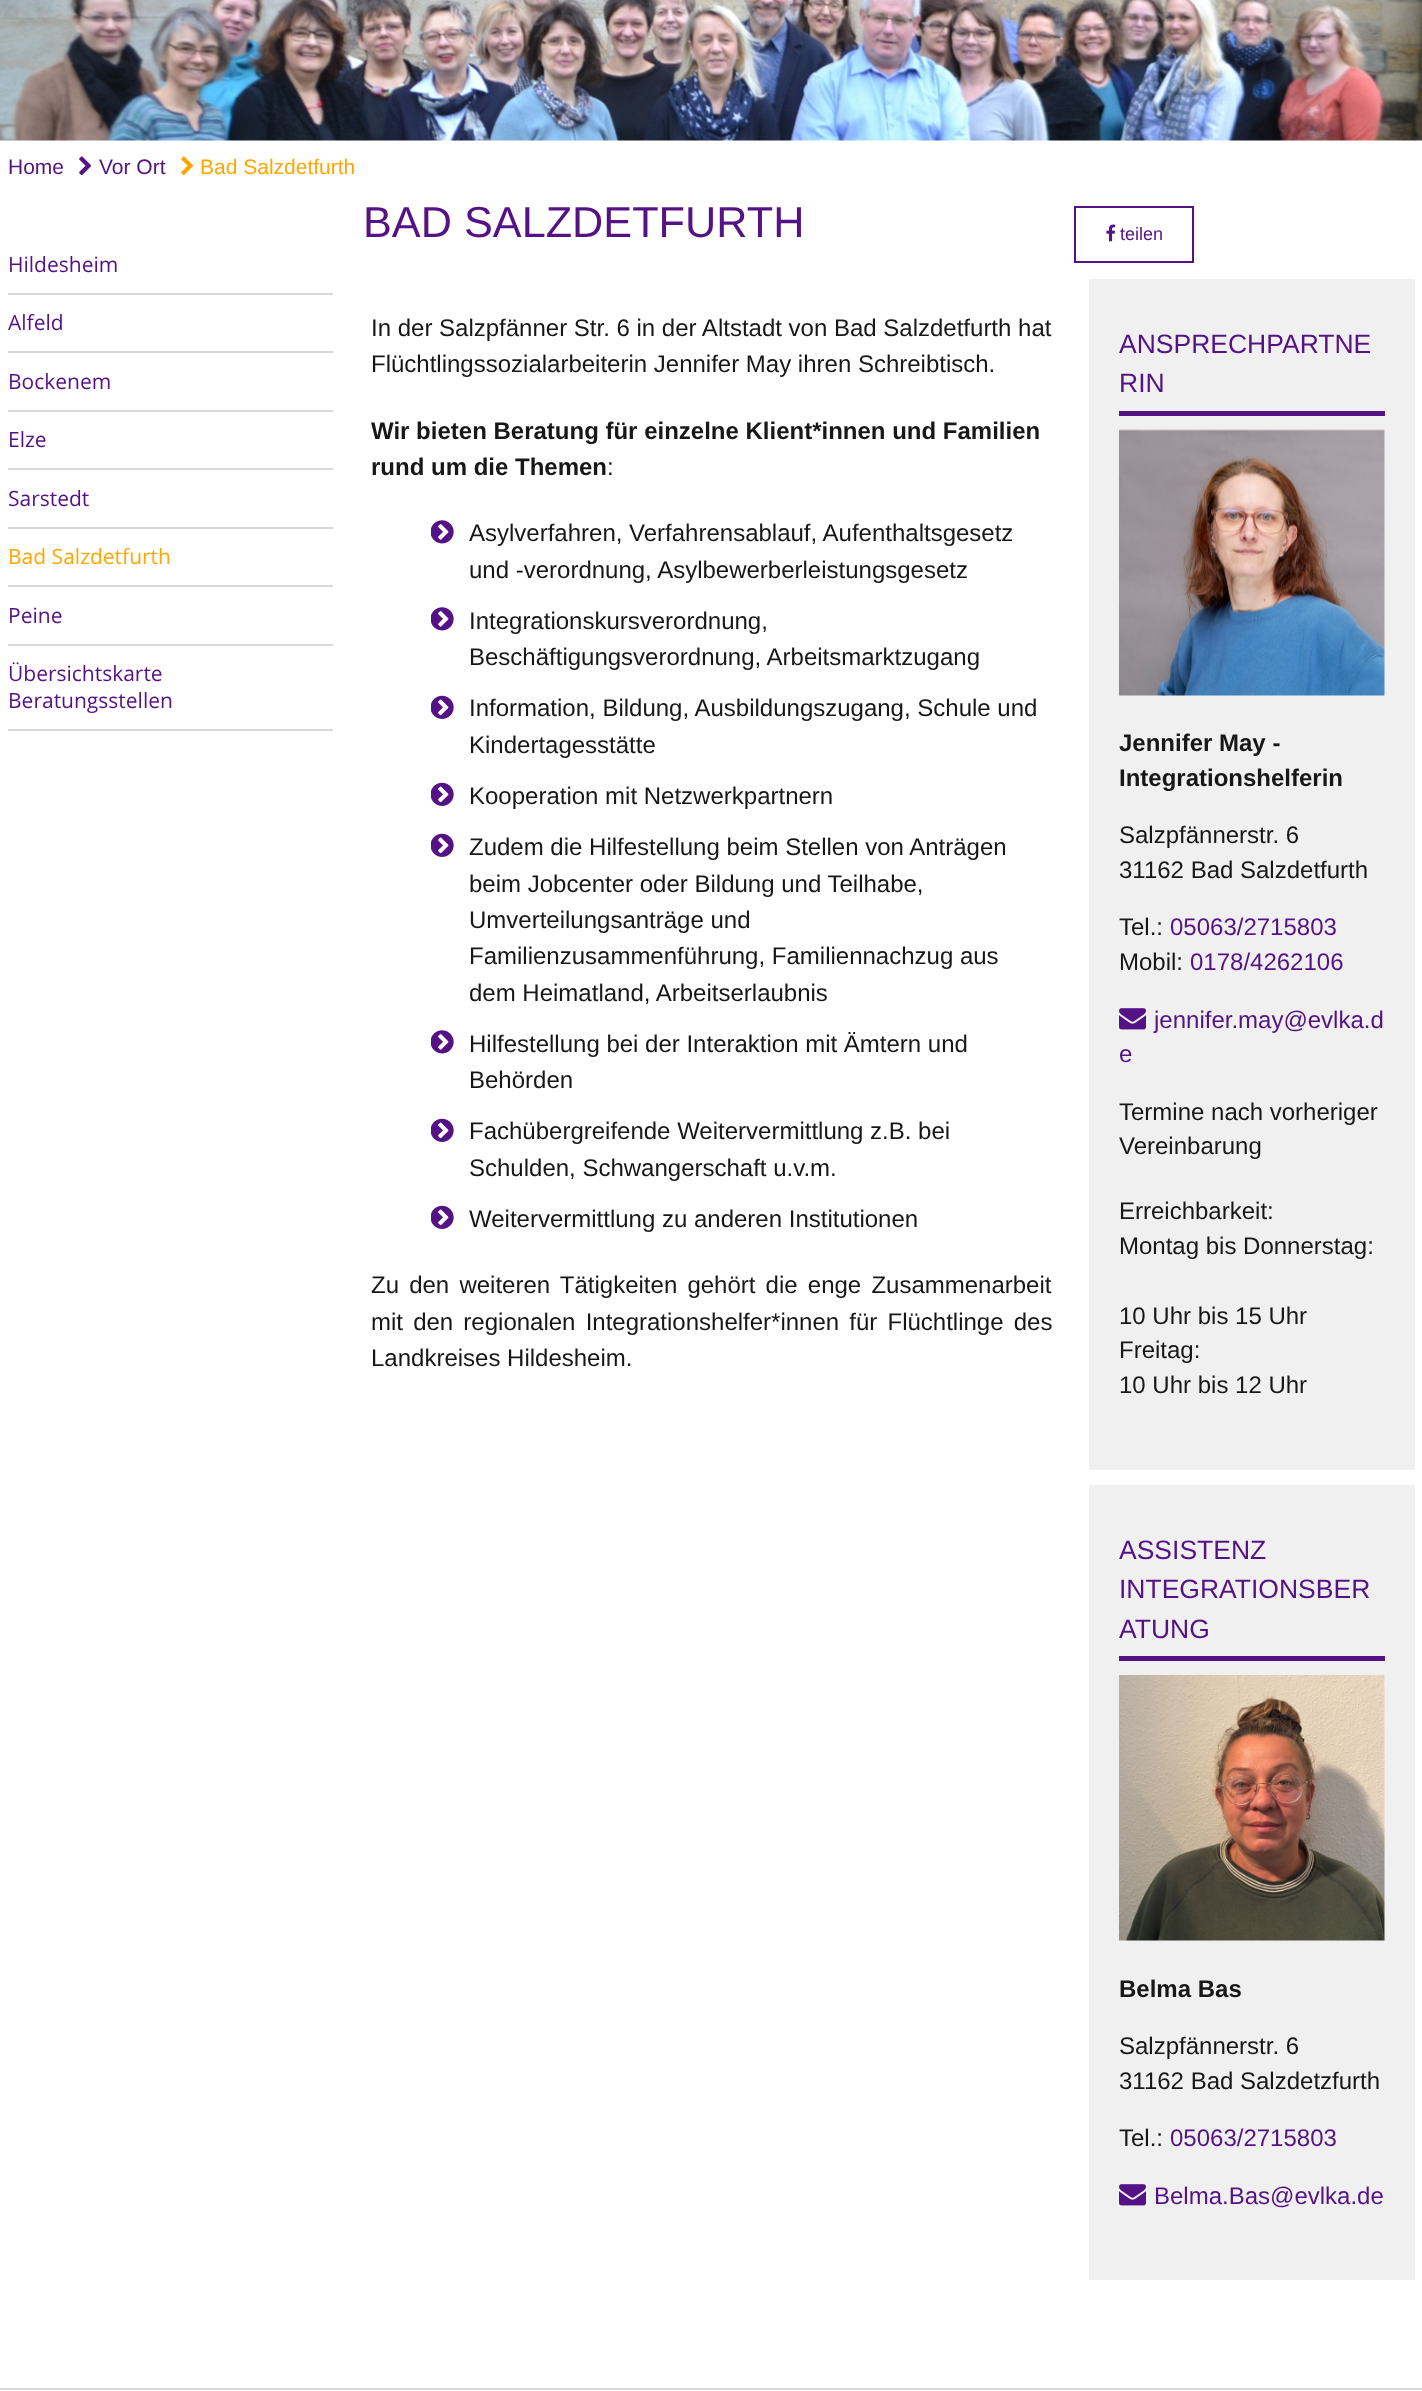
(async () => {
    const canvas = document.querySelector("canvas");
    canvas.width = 1422;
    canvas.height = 2391;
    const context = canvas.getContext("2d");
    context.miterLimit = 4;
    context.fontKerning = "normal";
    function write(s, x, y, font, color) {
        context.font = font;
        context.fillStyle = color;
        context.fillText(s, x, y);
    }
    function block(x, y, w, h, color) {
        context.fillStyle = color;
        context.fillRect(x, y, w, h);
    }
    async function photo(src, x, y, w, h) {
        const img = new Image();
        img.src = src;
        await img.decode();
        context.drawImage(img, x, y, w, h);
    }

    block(0, 0, 1422, 2391, "rgb(255, 255, 255)");
    await photo("media/1.png", 0, 0, 1422, 141);
    write("Home", 8, 174, "21px Liberation Sans", "rgb(85, 18, 133)");
    await photo("media/2.png", 79, 156, 13, 20);
    write("Vor Ort", 99, 174, "21px Liberation Sans", "rgb(85, 18, 133)");
    await photo("media/3.png", 181, 156, 13, 20);
    write("Bad Salzdetfurth", 200, 174, "21px Liberation Sans", "rgb(255, 166, 0)");
    block(8, 293, 325, 2, "rgb(216, 216, 216)");
    write("Hildesheim", 8, 272, "21px Open Sans", "rgb(85, 18, 133)");
    block(8, 351, 325, 2, "rgb(216, 216, 216)");
    write("Alfeld", 8, 330, "21px Open Sans", "rgb(85, 18, 133)");
    block(8, 410, 325, 2, "rgb(216, 216, 216)");
    write("Bockenem", 8, 389, "21px Open Sans", "rgb(85, 18, 133)");
    block(8, 468, 325, 2, "rgb(216, 216, 216)");
    write("Elze", 8, 447, "21px Open Sans", "rgb(85, 18, 133)");
    block(8, 527, 325, 2, "rgb(216, 216, 216)");
    write("Sarstedt", 8, 506, "21px Open Sans", "rgb(85, 18, 133)");
    block(8, 585, 325, 2, "rgb(216, 216, 216)");
    write("Bad Salzdetfurth", 8, 564, "21px Open Sans", "rgb(255, 166, 0)");
    block(8, 644, 325, 2, "rgb(216, 216, 216)");
    write("Peine", 8, 623, "21px Open Sans", "rgb(85, 18, 133)");
    block(8, 729, 325, 2, "rgb(216, 216, 216)");
    write("Übersichtskarte", 8, 681, "21px Open Sans", "rgb(85, 18, 133)");
    write("Beratungsstellen", 8, 708, "21px Open Sans", "rgb(85, 18, 133)");
    write("BAD SALZDETFURTH", 363, 237, "43.25px Liberation Sans", "rgb(85, 18, 133)");
    context.strokeStyle = "rgb(85, 18, 133)";
    context.lineWidth = 2;
    context.strokeRect(1075, 207, 118, 55);
    await photo("media/4.png", 1106, 224, 10, 18);
    write("teilen", 1120, 240, "18px Liberation Sans", "rgb(85, 18, 133)");
    write("In der Salzpfänner Str. 6 in der Altstadt von Bad Salzdetfurth hat", 371, 336, "24px Liberation Sans", "rgb(23, 23, 23)");
    write("Flüchtlingssozialarbeiterin Jennifer May ihren Schreibtisch.", 371, 372, "24px Liberation Sans", "rgb(23, 23, 23)");
    write("Wir bieten Beratung für einzelne Klient*innen und Familien", 371, 439, "bold 24px Liberation Sans", "rgb(23, 23, 23)");
    write("rund um die Themen", 371, 475, "bold 24px Liberation Sans", "rgb(23, 23, 23)");
    write(":", 607, 475, "24px Liberation Sans", "rgb(23, 23, 23)");
    await photo("media/5.png", 431, 520, 23, 24);
    write("Asylverfahren, Verfahrensablauf, Aufenthaltsgesetz", 469, 541, "24px Liberation Sans", "rgb(23, 23, 23)");
    write("und -verordnung, Asylbewerberleistungsgesetz", 469, 578, "24px Liberation Sans", "rgb(23, 23, 23)");
    await photo("media/5.png", 431, 607, 23, 24);
    write("Integrationskursverordnung,", 469, 629, "24px Liberation Sans", "rgb(23, 23, 23)");
    write("Beschäftigungsverordnung, Arbeitsmarktzugang", 469, 665, "24px Liberation Sans", "rgb(23, 23, 23)");
    await photo("media/6.png", 431, 695, 23, 24);
    write("Information, Bildung, Ausbildungszugang, Schule und", 469, 716, "24px Liberation Sans", "rgb(23, 23, 23)");
    write("Kindertagesstätte", 469, 753, "24px Liberation Sans", "rgb(23, 23, 23)");
    await photo("media/6.png", 431, 782, 23, 24);
    write("Kooperation mit Netzwerkpartnern", 469, 804, "24px Liberation Sans", "rgb(23, 23, 23)");
    await photo("media/6.png", 431, 833, 23, 24);
    write("Zudem die Hilfestellung beim Stellen von Anträgen", 469, 855, "24px Liberation Sans", "rgb(23, 23, 23)");
    write("beim Jobcenter oder Bildung und Teilhabe,", 469, 892, "24px Liberation Sans", "rgb(23, 23, 23)");
    write("Umverteilungsanträge und", 469, 928, "24px Liberation Sans", "rgb(23, 23, 23)");
    write("Familienzusammenführung, Familiennachzug aus", 469, 964, "24px Liberation Sans", "rgb(23, 23, 23)");
    write("dem Heimatland, Arbeitserlaubnis", 469, 1001, "24px Liberation Sans", "rgb(23, 23, 23)");
    await photo("media/5.png", 431, 1030, 23, 24);
    write("Hilfestellung bei der Interaktion mit Ämtern und", 469, 1052, "24px Liberation Sans", "rgb(23, 23, 23)");
    write("Behörden", 469, 1088, "24px Liberation Sans", "rgb(23, 23, 23)");
    await photo("media/6.png", 431, 1118, 23, 24);
    write("Fachübergreifende Weitervermittlung z.B. bei", 469, 1139, "24px Liberation Sans", "rgb(23, 23, 23)");
    write("Schulden, Schwangerschaft u.v.m.", 469, 1176, "24px Liberation Sans", "rgb(23, 23, 23)");
    await photo("media/6.png", 431, 1205, 23, 24);
    write("Weitervermittlung zu anderen Institutionen", 469, 1227, "24px Liberation Sans", "rgb(23, 23, 23)");
    context.wordSpacing = "3.5px";
    write("Zu den weiteren Tätigkeiten gehört die enge Zusammenarbeit", 371, 1293, "24px Liberation Sans", "rgb(23, 23, 23)");
    write("mit den regionalen Integrationshelfer*innen für Flüchtlinge des", 371, 1330, "24px Liberation Sans", "rgb(23, 23, 23)");
    context.wordSpacing = "0px";
    write("Landkreises Hildesheim.", 371, 1366, "24px Liberation Sans", "rgb(23, 23, 23)");
    block(1089, 279, 326, 1191, "rgb(240, 240, 240)");
    block(1119, 411, 266, 5, "rgb(85, 18, 133)");
    write("ANSPRECHPARTNE", 1119, 353, "26.5px Liberation Sans", "rgb(85, 18, 133)");
    write("RIN", 1119, 392, "26.5px Liberation Sans", "rgb(85, 18, 133)");
    await photo("media/7.png", 1119, 429, 266, 267);
    write("Jennifer May -", 1119, 751, "bold 24px Liberation Sans", "rgb(23, 23, 23)");
    write("Integrationshelferin", 1119, 786, "bold 24px Liberation Sans", "rgb(23, 23, 23)");
    write("Salzpfännerstr. 6", 1119, 843, "24px Liberation Sans", "rgb(23, 23, 23)");
    write("31162 Bad Salzdetfurth", 1119, 878, "24px Liberation Sans", "rgb(23, 23, 23)");
    write("Tel.:", 1119, 935, "24px Liberation Sans", "rgb(23, 23, 23)");
    write("05063/2715803", 1170, 935, "24px Liberation Sans", "rgb(85, 18, 133)");
    write("Mobil:", 1119, 970, "24px Liberation Sans", "rgb(23, 23, 23)");
    write("0178/4262106", 1190, 970, "24px Liberation Sans", "rgb(85, 18, 133)");
    await photo("media/8.png", 1119, 1008, 27, 22);
    write("jennifer.may@evlka.d", 1154, 1028, "24px Liberation Sans", "rgb(85, 18, 133)");
    write("e", 1119, 1062, "24px Liberation Sans", "rgb(85, 18, 133)");
    write("Termine nach vorheriger", 1119, 1120, "24px Liberation Sans", "rgb(23, 23, 23)");
    write("Vereinbarung", 1119, 1154, "24px Liberation Sans", "rgb(23, 23, 23)");
    write("Erreichbarkeit:", 1119, 1219, "24px Liberation Sans", "rgb(23, 23, 23)");
    write("Montag bis Donnerstag:", 1119, 1254, "24px Liberation Sans", "rgb(23, 23, 23)");
    write("10 Uhr bis 15 Uhr", 1119, 1324, "24px Liberation Sans", "rgb(23, 23, 23)");
    write("Freitag:", 1119, 1358, "24px Liberation Sans", "rgb(23, 23, 23)");
    write("10 Uhr bis 12 Uhr", 1119, 1393, "24px Liberation Sans", "rgb(23, 23, 23)");
    block(1089, 1485, 326, 795, "rgb(240, 240, 240)");
    block(1119, 1656, 266, 5, "rgb(85, 18, 133)");
    write("ASSISTENZ", 1119, 1559, "26.5px Liberation Sans", "rgb(85, 18, 133)");
    write("INTEGRATIONSBER", 1119, 1598, "26.5px Liberation Sans", "rgb(85, 18, 133)");
    write("ATUNG", 1119, 1638, "26.5px Liberation Sans", "rgb(85, 18, 133)");
    await photo("media/9.png", 1119, 1675, 266, 266);
    write("Belma Bas", 1119, 1997, "bold 24px Liberation Sans", "rgb(23, 23, 23)");
    write("Salzpfännerstr. 6", 1119, 2054, "24px Liberation Sans", "rgb(23, 23, 23)");
    write("31162 Bad Salzdetzfurth", 1119, 2089, "24px Liberation Sans", "rgb(23, 23, 23)");
    write("Tel.:", 1119, 2146, "24px Liberation Sans", "rgb(23, 23, 23)");
    write("05063/2715803", 1170, 2146, "24px Liberation Sans", "rgb(85, 18, 133)");
    await photo("media/8.png", 1119, 2184, 27, 22);
    write("Belma.Bas@evlka.de", 1154, 2204, "24px Liberation Sans", "rgb(85, 18, 133)");
    block(0, 2388, 1422, 2, "rgb(216, 216, 216)");
})();
